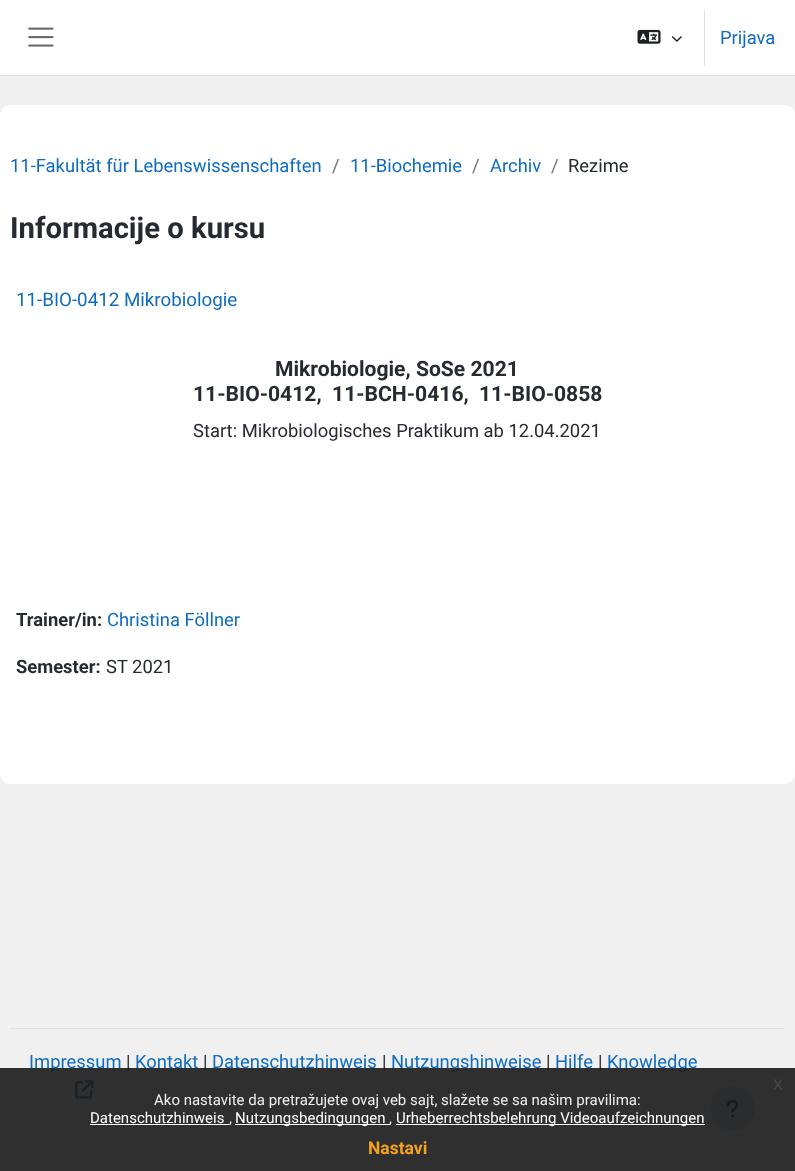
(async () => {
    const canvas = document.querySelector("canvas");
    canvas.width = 795;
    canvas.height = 1171;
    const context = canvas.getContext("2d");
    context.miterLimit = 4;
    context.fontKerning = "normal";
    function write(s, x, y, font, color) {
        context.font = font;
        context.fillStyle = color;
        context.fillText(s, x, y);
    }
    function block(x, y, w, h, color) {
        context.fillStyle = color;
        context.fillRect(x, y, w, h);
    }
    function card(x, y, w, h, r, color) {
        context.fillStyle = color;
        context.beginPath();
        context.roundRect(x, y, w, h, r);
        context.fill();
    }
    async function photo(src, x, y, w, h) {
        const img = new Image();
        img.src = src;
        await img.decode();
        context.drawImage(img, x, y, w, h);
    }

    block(0, 0, 795, 1171, "rgb(240, 240, 240)");
    block(0, 0, 795, 75, "rgb(255, 255, 255)");
    block(0, 75, 795, 1, "rgb(222, 226, 230)");
    await photo("media/1.png", 28, 27, 26, 20);
    await photo("media/2.png", 637, 29, 24, 15);
    await photo("media/3.png", 672, 36, 10, 6);
    block(704, 10, 1, 56, "rgb(222, 226, 230)");
    write("Prijava", 720, 44, "18.4px Roboto", "rgb(15, 108, 191)");
    card(0, 105, 795, 679, 10, "rgb(255, 255, 255)");
    write("11-Fakultät für Lebenswissenschaften", 10, 172, "18.4px Roboto", "rgb(15, 108, 191)");
    write("/", 332, 172, "18.4px Roboto", "rgb(106, 115, 123)");
    write("11-Biochemie", 350, 172, "18.4px Roboto", "rgb(15, 108, 191)");
    write("/", 472, 172, "18.4px Roboto", "rgb(106, 115, 123)");
    write("Archiv", 490, 172, "18.4px Roboto", "rgb(15, 108, 191)");
    write("/", 551, 172, "18.4px Roboto", "rgb(106, 115, 123)");
    write("Rezime", 568, 172, "18.4px Roboto", "rgb(38, 42, 49)");
    write("Informacije o kursu", 10, 238, "bold 29.25px Roboto", "rgb(38, 42, 49)");
    write("11-BIO-0412 Mikrobiologie", 16, 306, "18.75px Roboto", "rgb(15, 108, 191)");
    write("Mikrobiologie, SoSe 2021", 275, 376, "bold 21.1px Roboto", "rgb(38, 42, 49)");
    write("11-BIO-0412,  11-BCH-0416,", 193, 401, "bold 21.1px Roboto", "rgb(38, 42, 49)");
    write("11-BIO-0858", 479, 401, "bold 21.1px Roboto", "rgb(38, 42, 49)");
    write("Start: Mikrobiologisches Praktikum ab 12.04.2021", 193, 437, "18.4px Roboto", "rgb(38, 42, 49)");
    write("Trainer/in:", 16, 626, "bold 18.4px Roboto", "rgb(38, 42, 49)");
    write("Christina Föllner", 107, 626, "18.4px Roboto", "rgb(15, 108, 191)");
    write("Semester:", 16, 673, "bold 18.4px Roboto", "rgb(38, 42, 49)");
    write("ST 2021", 106, 673, "18.4px Roboto", "rgb(38, 42, 49)");
    block(10, 1028, 775, 1, "rgb(222, 226, 230)");
    write("Impressum", 29, 1068, "18.4px Roboto", "rgb(15, 108, 191)");
    write("|", 126, 1068, "18.4px Roboto", "rgb(38, 42, 49)");
    write("Kontakt", 135, 1068, "18.4px Roboto", "rgb(15, 108, 191)");
    write("|", 203, 1068, "18.4px Roboto", "rgb(38, 42, 49)");
    write("Datenschutzhinweis", 212, 1068, "18.4px Roboto", "rgb(15, 108, 191)");
    write("|", 382, 1068, "18.4px Roboto", "rgb(38, 42, 49)");
    write("Nutzungshinweise", 391, 1068, "18.4px Roboto", "rgb(15, 108, 191)");
    write("|", 546, 1068, "18.4px Roboto", "rgb(38, 42, 49)");
    write("Hilfe", 555, 1068, "18.4px Roboto", "rgb(15, 108, 191)");
    write("|", 598, 1068, "18.4px Roboto", "rgb(38, 42, 49)");
    write("Knowledge", 607, 1068, "18.4px Roboto", "rgb(15, 108, 191)");
    await photo("media/4.png", 75, 1080, 19, 19);
    context.fillStyle = "rgb(206, 212, 218)";
    context.beginPath();
    context.arc(732.5, 1108.5, 22.5, 0, Math.PI * 2);
    context.fill();
    await photo("media/5.png", 726, 1100, 13, 18);
    block(0, 1068, 795, 103, "rgba(25, 25, 25, 0.9)");
    write("x", 773, 1090, "20px Liberation Sans", "rgb(70, 70, 70)");
    write("Ako nastavite da pretražujete ovaj veb sajt, slažete se sa našim pravilima:", 154, 1105, "15px Roboto", "rgb(239, 239, 239)");
    write("Datenschutzhinweis", 90, 1123, "15px Roboto", "rgb(255, 255, 255)");
    block(90, 1124, 139, 1, "rgb(255, 255, 255)");
    write(",", 229, 1123, "15px Roboto", "rgb(239, 239, 239)");
    block(235, 1124, 155, 1, "rgb(255, 255, 255)");
    write("Nutzungsbedingungen", 235, 1123, "15px Roboto", "rgb(255, 255, 255)");
    write(",", 389, 1123, "15px Roboto", "rgb(239, 239, 239)");
    block(396, 1124, 309, 1, "rgb(255, 255, 255)");
    write("Urheberrechtsbelehrung Videoaufzeichnungen", 396, 1123, "15px Roboto", "rgb(255, 255, 255)");
    write("Nastavi", 368, 1154, "bold 17.5px Roboto", "rgb(246, 162, 29)");
})();
